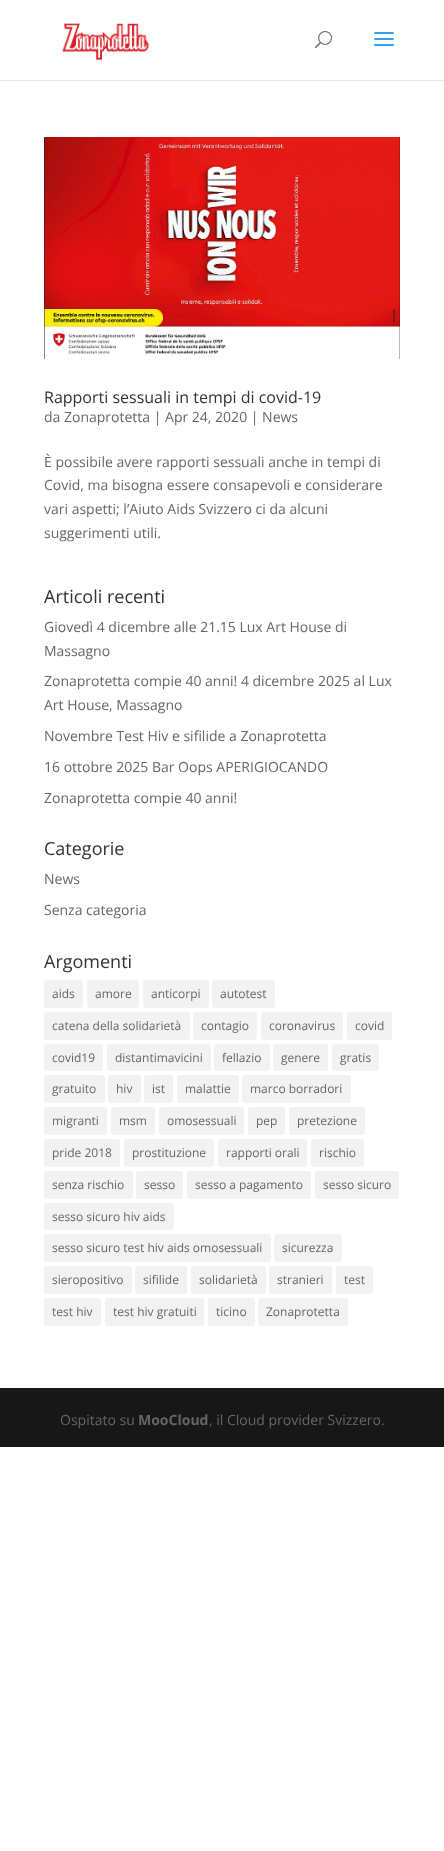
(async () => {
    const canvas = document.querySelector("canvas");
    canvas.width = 444;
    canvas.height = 1851;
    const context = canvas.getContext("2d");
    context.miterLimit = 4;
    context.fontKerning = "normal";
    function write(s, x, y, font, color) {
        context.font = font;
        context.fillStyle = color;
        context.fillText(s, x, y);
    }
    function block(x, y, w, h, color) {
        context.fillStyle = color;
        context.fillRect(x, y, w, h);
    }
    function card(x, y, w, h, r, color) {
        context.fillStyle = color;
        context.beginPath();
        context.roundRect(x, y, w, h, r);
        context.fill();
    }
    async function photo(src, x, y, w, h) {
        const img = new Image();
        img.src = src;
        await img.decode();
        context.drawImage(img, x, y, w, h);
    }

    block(0, 0, 444, 1851, "rgb(255, 255, 255)");
    block(0, 80, 444, 1, "rgb(230, 230, 230)");
    await photo("media/1.png", 62, 23, 88, 38);
    await photo("media/2.png", 315, 31, 17, 18);
    await photo("media/3.png", 374, 32, 20, 14);
    await photo("media/4.png", 44, 137, 356, 222);
    write("Rapporti sessuali in tempi di covid-19", 44, 403, "16px Open Sans", "rgb(51, 51, 51)");
    write("da Zonaprotetta | Apr 24, 2020 | News", 44, 422, "14px Open Sans", "rgb(102, 102, 102)");
    write("È possibile avere rapporti sessuali anche in tempi di", 44, 467, "14px Open Sans", "rgb(102, 102, 102)");
    write("Covid, ma bisogna essere consapevoli e considerare", 44, 490, "14px Open Sans", "rgb(102, 102, 102)");
    write("vari aspetti; l’Aiuto Aids Svizzero ci da alcuni", 44, 514, "14px Open Sans", "rgb(102, 102, 102)");
    write("suggerimenti utili.", 44, 538, "14px Open Sans", "rgb(102, 102, 102)");
    write("Articoli recenti", 44, 603, "18px Open Sans", "rgb(51, 51, 51)");
    write("Giovedì 4 dicembre alle 21.15 Lux Art House di", 44, 632, "14px Open Sans", "rgb(102, 102, 102)");
    write("Massagno", 44, 656, "14px Open Sans", "rgb(102, 102, 102)");
    write("Zonaprotetta compie 40 anni! 4 dicembre 2025 al Lux", 44, 686, "14px Open Sans", "rgb(102, 102, 102)");
    write("Art House, Massagno", 44, 710, "14px Open Sans", "rgb(102, 102, 102)");
    write("Novembre Test Hiv e sifilide a Zonaprotetta", 44, 741, "14px Open Sans", "rgb(102, 102, 102)");
    write("16 ottobre 2025 Bar Oops APERIGIOCANDO", 44, 772, "14px Open Sans", "rgb(102, 102, 102)");
    write("Zonaprotetta compie 40 anni!", 44, 803, "14px Open Sans", "rgb(102, 102, 102)");
    write("Categorie", 44, 855, "18px Open Sans", "rgb(51, 51, 51)");
    write("News", 44, 884, "14px Open Sans", "rgb(102, 102, 102)");
    write("Senza categoria", 44, 915, "14px Open Sans", "rgb(102, 102, 102)");
    write("Argomenti", 44, 968, "18px Open Sans", "rgb(51, 51, 51)");
    card(44, 980, 39, 28, 3, "rgb(242, 242, 242)");
    write("aids", 52, 998, "12px Open Sans", "rgb(102, 102, 102)");
    card(87, 980, 52, 28, 3, "rgb(242, 242, 242)");
    write("amore", 95, 998, "12px Open Sans", "rgb(102, 102, 102)");
    card(143, 980, 66, 28, 3, "rgb(242, 242, 242)");
    write("anticorpi", 151, 998, "12px Open Sans", "rgb(102, 102, 102)");
    card(212, 980, 63, 28, 3, "rgb(242, 242, 242)");
    write("autotest", 220, 998, "12px Open Sans", "rgb(102, 102, 102)");
    card(44, 1012, 146, 28, 3, "rgb(242, 242, 242)");
    write("catena della solidarietà", 52, 1030, "12px Open Sans", "rgb(102, 102, 102)");
    card(193, 1012, 64, 28, 3, "rgb(242, 242, 242)");
    write("contagio", 201, 1030, "12px Open Sans", "rgb(102, 102, 102)");
    card(261, 1012, 82, 28, 3, "rgb(242, 242, 242)");
    write("coronavirus", 269, 1030, "12px Open Sans", "rgb(102, 102, 102)");
    card(347, 1012, 45, 28, 3, "rgb(242, 242, 242)");
    write("covid", 355, 1030, "12px Open Sans", "rgb(102, 102, 102)");
    card(44, 1044, 59, 27, 3, "rgb(242, 242, 242)");
    write("covid19", 52, 1062, "12px Open Sans", "rgb(102, 102, 102)");
    card(107, 1044, 104, 27, 3, "rgb(242, 242, 242)");
    write("distantimavicini", 115, 1062, "12px Open Sans", "rgb(102, 102, 102)");
    card(214, 1044, 56, 27, 3, "rgb(242, 242, 242)");
    write("fellazio", 222, 1062, "12px Open Sans", "rgb(102, 102, 102)");
    card(273, 1044, 55, 27, 3, "rgb(242, 242, 242)");
    write("genere", 281, 1062, "12px Open Sans", "rgb(102, 102, 102)");
    card(332, 1044, 47, 27, 3, "rgb(242, 242, 242)");
    write("gratis", 340, 1062, "12px Open Sans", "rgb(102, 102, 102)");
    card(44, 1075, 61, 28, 3, "rgb(242, 242, 242)");
    write("gratuito", 52, 1093, "12px Open Sans", "rgb(102, 102, 102)");
    card(108, 1075, 33, 28, 3, "rgb(242, 242, 242)");
    write("hiv", 116, 1093, "12px Open Sans", "rgb(102, 102, 102)");
    card(144, 1075, 29, 28, 3, "rgb(242, 242, 242)");
    write("ist", 152, 1093, "12px Open Sans", "rgb(102, 102, 102)");
    card(177, 1075, 62, 28, 3, "rgb(242, 242, 242)");
    write("malattie", 185, 1093, "12px Open Sans", "rgb(102, 102, 102)");
    card(242, 1075, 109, 28, 3, "rgb(242, 242, 242)");
    write("marco borradori", 250, 1093, "12px Open Sans", "rgb(102, 102, 102)");
    card(44, 1107, 63, 28, 3, "rgb(242, 242, 242)");
    write("migranti", 52, 1125, "12px Open Sans", "rgb(102, 102, 102)");
    card(111, 1107, 44, 28, 3, "rgb(242, 242, 242)");
    write("msm", 119, 1125, "12px Open Sans", "rgb(102, 102, 102)");
    card(159, 1107, 85, 28, 3, "rgb(242, 242, 242)");
    write("omosessuali", 167, 1125, "12px Open Sans", "rgb(102, 102, 102)");
    card(248, 1107, 37, 28, 3, "rgb(242, 242, 242)");
    write("pep", 256, 1125, "12px Open Sans", "rgb(102, 102, 102)");
    card(289, 1107, 76, 28, 3, "rgb(242, 242, 242)");
    write("pretezione", 297, 1125, "12px Open Sans", "rgb(102, 102, 102)");
    card(44, 1139, 76, 28, 3, "rgb(242, 242, 242)");
    write("pride 2018", 52, 1157, "12px Open Sans", "rgb(102, 102, 102)");
    card(124, 1139, 90, 28, 3, "rgb(242, 242, 242)");
    write("prostituzione", 132, 1157, "12px Open Sans", "rgb(102, 102, 102)");
    card(218, 1139, 89, 28, 3, "rgb(242, 242, 242)");
    write("rapporti orali", 226, 1157, "12px Open Sans", "rgb(102, 102, 102)");
    card(311, 1139, 53, 28, 3, "rgb(242, 242, 242)");
    write("rischio", 319, 1157, "12px Open Sans", "rgb(102, 102, 102)");
    card(44, 1171, 89, 28, 3, "rgb(242, 242, 242)");
    write("senza rischio", 52, 1189, "12px Open Sans", "rgb(102, 102, 102)");
    card(136, 1171, 47, 28, 3, "rgb(242, 242, 242)");
    write("sesso", 144, 1189, "12px Open Sans", "rgb(102, 102, 102)");
    card(187, 1171, 124, 28, 3, "rgb(242, 242, 242)");
    write("sesso a pagamento", 195, 1189, "12px Open Sans", "rgb(102, 102, 102)");
    card(315, 1171, 84, 28, 3, "rgb(242, 242, 242)");
    write("sesso sicuro", 323, 1189, "12px Open Sans", "rgb(102, 102, 102)");
    card(44, 1203, 130, 27, 3, "rgb(242, 242, 242)");
    write("sesso sicuro hiv aids", 52, 1221, "12px Open Sans", "rgb(102, 102, 102)");
    card(44, 1234, 227, 28, 3, "rgb(242, 242, 242)");
    write("sesso sicuro test hiv aids omosessuali", 52, 1252, "12px Open Sans", "rgb(102, 102, 102)");
    card(274, 1234, 68, 28, 3, "rgb(242, 242, 242)");
    write("sicurezza", 282, 1252, "12px Open Sans", "rgb(102, 102, 102)");
    card(44, 1266, 88, 28, 3, "rgb(242, 242, 242)");
    write("sieropositivo", 52, 1284, "12px Open Sans", "rgb(102, 102, 102)");
    card(135, 1266, 52, 28, 3, "rgb(242, 242, 242)");
    write("sifilide", 143, 1284, "12px Open Sans", "rgb(102, 102, 102)");
    card(191, 1266, 75, 28, 3, "rgb(242, 242, 242)");
    write("solidarietà", 199, 1284, "12px Open Sans", "rgb(102, 102, 102)");
    card(269, 1266, 63, 28, 3, "rgb(242, 242, 242)");
    write("stranieri", 277, 1284, "12px Open Sans", "rgb(102, 102, 102)");
    card(336, 1266, 37, 28, 3, "rgb(242, 242, 242)");
    write("test", 344, 1284, "12px Open Sans", "rgb(102, 102, 102)");
    card(44, 1298, 57, 28, 3, "rgb(242, 242, 242)");
    write("test hiv", 52, 1316, "12px Open Sans", "rgb(102, 102, 102)");
    card(105, 1298, 99, 28, 3, "rgb(242, 242, 242)");
    write("test hiv gratuiti", 113, 1316, "12px Open Sans", "rgb(102, 102, 102)");
    card(208, 1298, 47, 28, 3, "rgb(242, 242, 242)");
    write("ticino", 216, 1316, "12px Open Sans", "rgb(102, 102, 102)");
    card(258, 1298, 90, 28, 3, "rgb(242, 242, 242)");
    write("Zonaprotetta", 266, 1316, "12px Open Sans", "rgb(102, 102, 102)");
    block(0, 1388, 444, 59, "rgb(23, 23, 23)");
    write("Ospitato su", 60, 1425, "14px Open Sans", "rgb(102, 102, 102)");
    write("MooCloud", 138, 1425, "bold 14px Open Sans", "rgb(102, 102, 102)");
    write(", il Cloud provider Svizzero.", 209, 1425, "14px Open Sans", "rgb(102, 102, 102)");
})();
